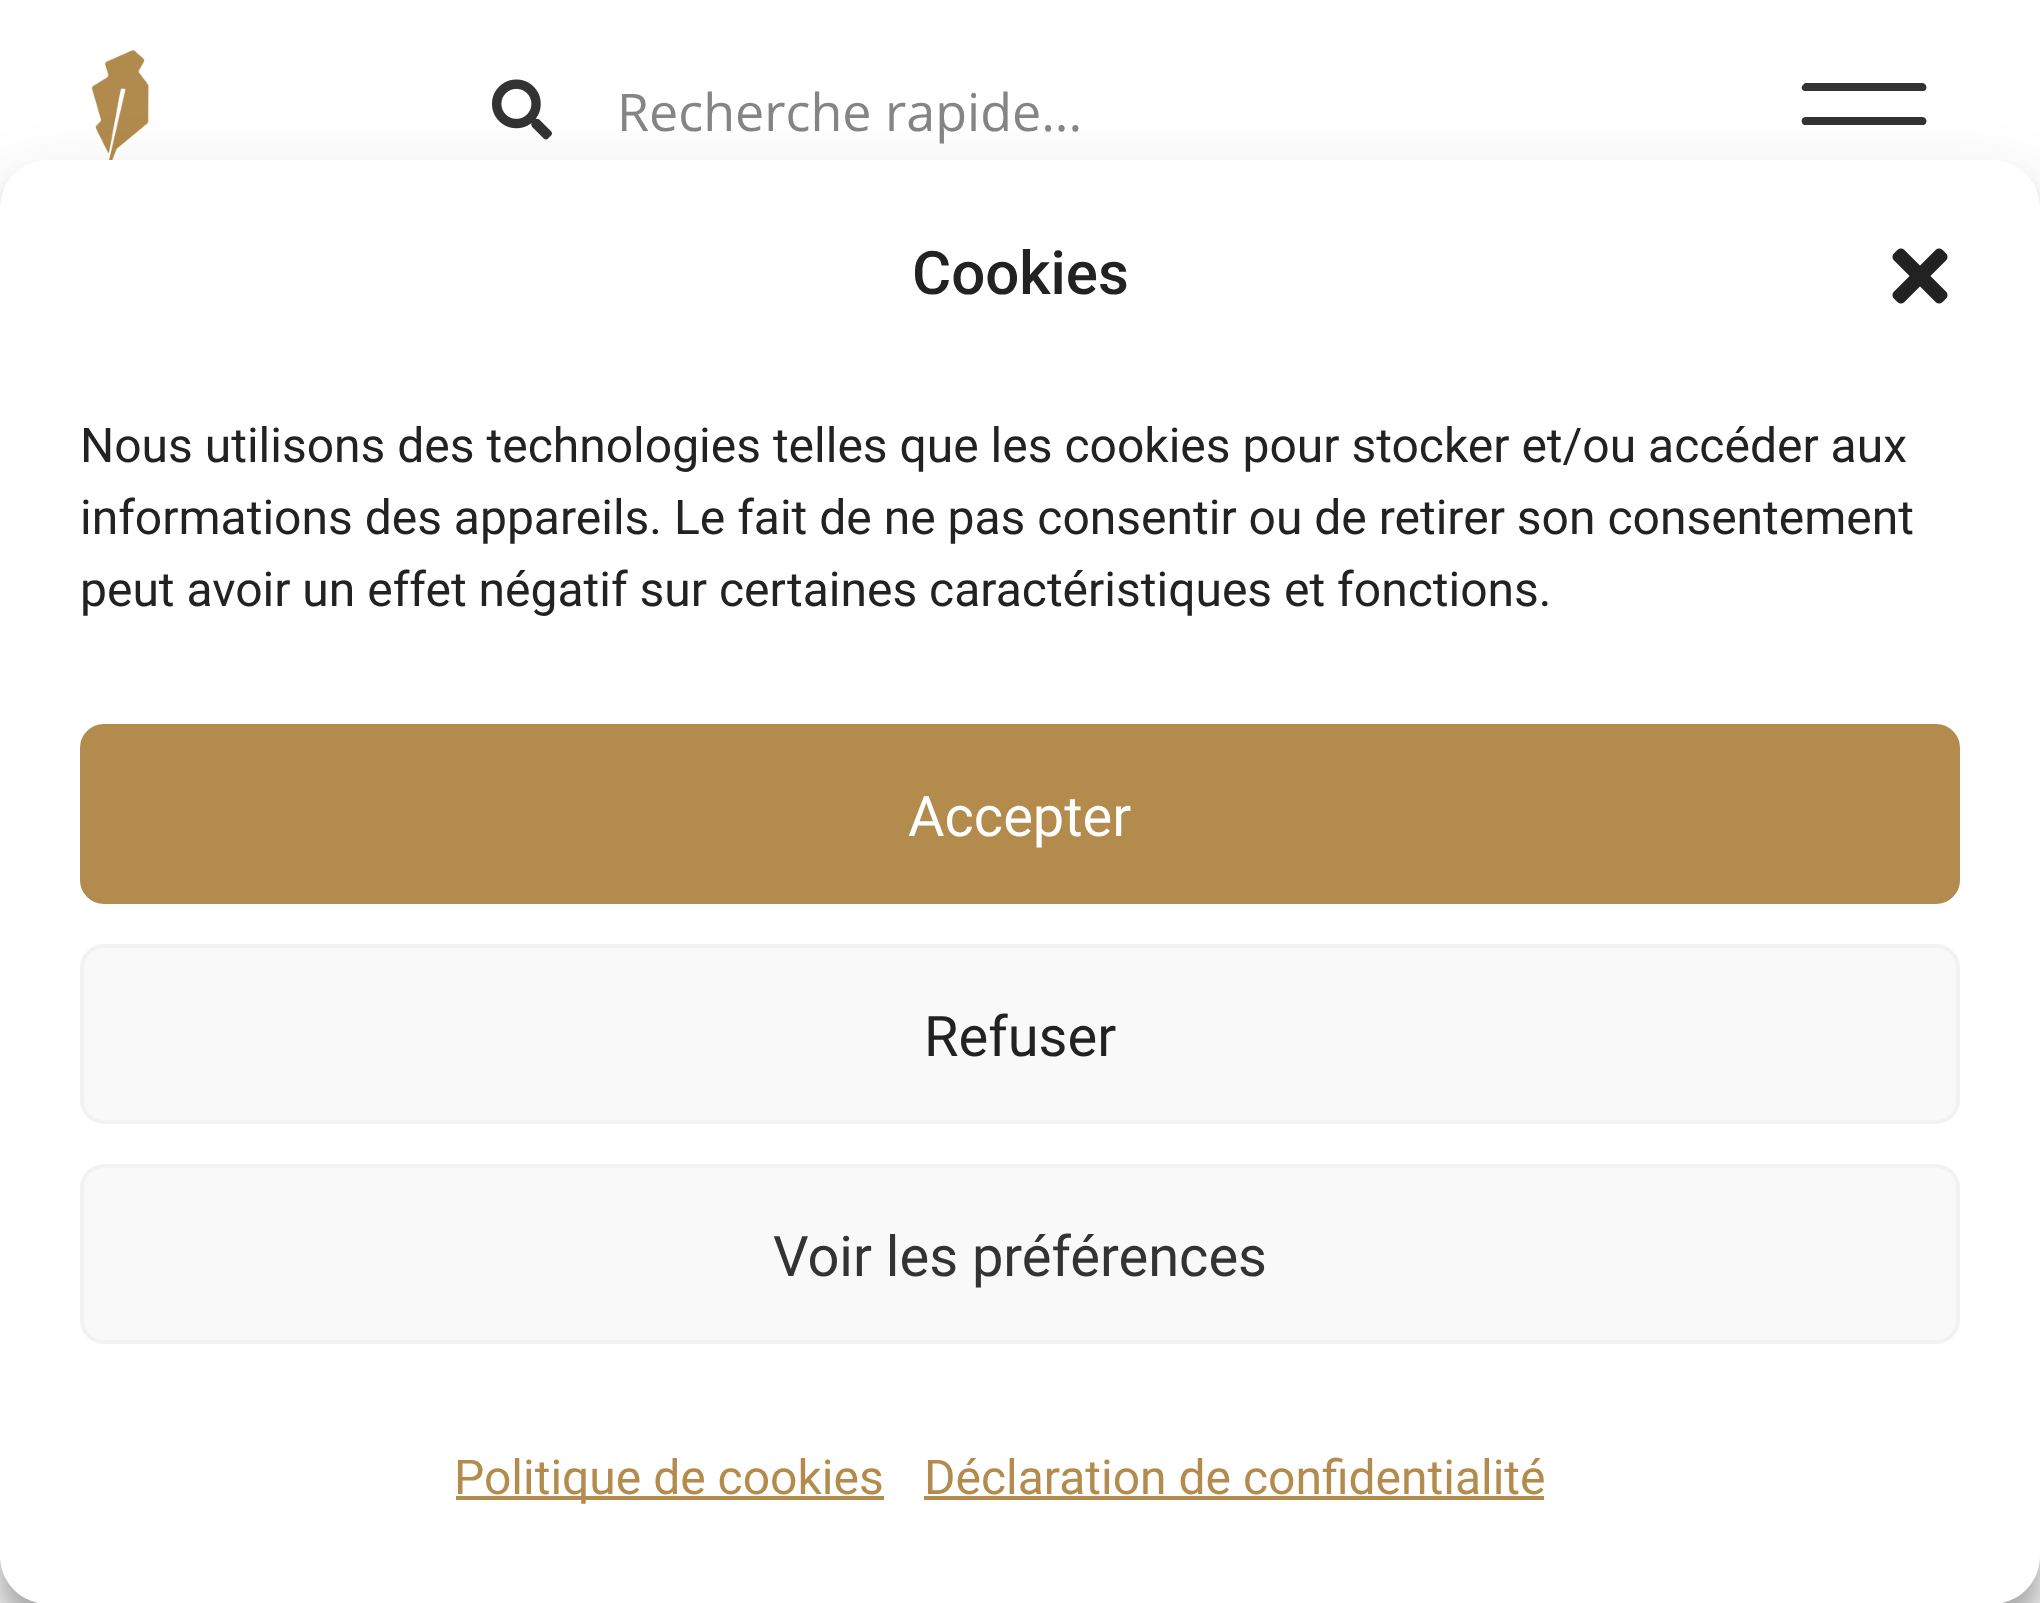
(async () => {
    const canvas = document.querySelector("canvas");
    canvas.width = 2040;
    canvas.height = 1603;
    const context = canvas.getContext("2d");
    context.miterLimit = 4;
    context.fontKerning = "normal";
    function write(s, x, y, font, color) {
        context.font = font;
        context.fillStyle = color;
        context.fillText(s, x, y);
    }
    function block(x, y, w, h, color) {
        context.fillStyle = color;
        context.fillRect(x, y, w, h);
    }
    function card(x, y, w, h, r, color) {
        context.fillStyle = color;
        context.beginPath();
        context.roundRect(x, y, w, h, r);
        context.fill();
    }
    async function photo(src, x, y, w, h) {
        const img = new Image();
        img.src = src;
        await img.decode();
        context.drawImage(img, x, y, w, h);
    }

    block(0, 0, 2040, 1603, "rgb(255, 255, 255)");
    await photo("media/1.png", 91, 49, 58, 111);
    await photo("media/2.png", 492, 79, 60, 61);
    write("Recherche rapide...", 617, 131, "52px Open Sans", "rgb(133, 133, 133)");
    context.fillStyle = "rgb(51, 51, 51)";
    context.beginPath();
    context.moveTo(1922, 83);
    context.lineTo(1805, 83);
    context.bezierCurveTo(1804, 84, 1803, 85, 1802, 86);
    context.bezierCurveTo(1801, 88, 1802, 90, 1804, 91);
    context.lineTo(1924, 91);
    context.bezierCurveTo(1928, 90, 1927, 83, 1922, 83);
    context.closePath();
    context.fill();
    context.beginPath();
    context.moveTo(1922, 117);
    context.lineTo(1805, 117);
    context.bezierCurveTo(1804, 117, 1803, 118, 1802, 119);
    context.bezierCurveTo(1801, 121, 1802, 124, 1804, 125);
    context.lineTo(1924, 125);
    context.bezierCurveTo(1928, 123, 1927, 117, 1922, 117);
    context.closePath();
    context.fill();
    context.fillStyle = "rgba(0, 0, 0, 0.23)";
    context.filter = "blur(12px)";
    context.beginPath();
    context.roundRect(0, 184, 2040, 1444, 48);
    context.fill();
    context.filter = "none";
    context.fillStyle = "rgba(0, 0, 0, 0.19)";
    context.filter = "blur(40px)";
    context.beginPath();
    context.roundRect(0, 200, 2040, 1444, 48);
    context.fill();
    context.filter = "none";
    context.fillStyle = "rgb(128, 128, 128)";
    context.filter = "blur(10px)";
    context.beginPath();
    context.roundRect(1760, 1308, 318, 240, 8);
    context.fill();
    context.filter = "none";
    card(0, 160, 2040, 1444, 48, "rgb(255, 255, 255)");
    write("Cookies", 912, 294, "500 60px Roboto", "rgb(34, 34, 34)");
    await photo("media/3.png", 1892, 248, 56, 56);
    write("Nous utilisons des technologies telles que les cookies pour stocker et/ou accéder aux", 80, 462, "48px Roboto", "rgb(34, 34, 34)");
    write("informations des appareils. Le fait de ne pas consentir ou de retirer son consentement", 80, 534, "48px Roboto", "rgb(34, 34, 34)");
    write("peut avoir un effet négatif sur certaines caractéristiques et fonctions.", 80, 606, "48px Roboto", "rgb(34, 34, 34)");
    context.fillStyle = "rgb(178, 139, 77)";
    context.beginPath();
    context.roundRect(82, 726, 1876, 176, 22);
    context.fill();
    context.strokeStyle = "rgb(178, 139, 77)";
    context.lineWidth = 4;
    context.stroke();
    write("Accepter", 908, 836, "56px Roboto", "rgb(255, 255, 255)");
    context.fillStyle = "rgb(249, 249, 249)";
    context.beginPath();
    context.roundRect(82, 946, 1876, 176, 22);
    context.fill();
    context.strokeStyle = "rgb(242, 242, 242)";
    context.stroke();
    write("Refuser", 924, 1056, "56px Roboto", "rgb(34, 34, 34)");
    context.fillStyle = "rgb(249, 249, 249)";
    context.beginPath();
    context.roundRect(82, 1166, 1876, 176, 22);
    context.fill();
    context.stroke();
    write("Voir les préférences", 773, 1276, "56px Roboto", "rgb(51, 51, 51)");
    block(456, 1496, 428, 4, "rgb(178, 139, 77)");
    write("Politique de cookies", 454, 1494, "48px Roboto", "rgb(178, 139, 77)");
    write("Déclaration de confidentialité", 924, 1494, "48px Roboto", "rgb(178, 139, 77)");
    block(924, 1496, 620, 4, "rgb(178, 139, 77)");
})();
